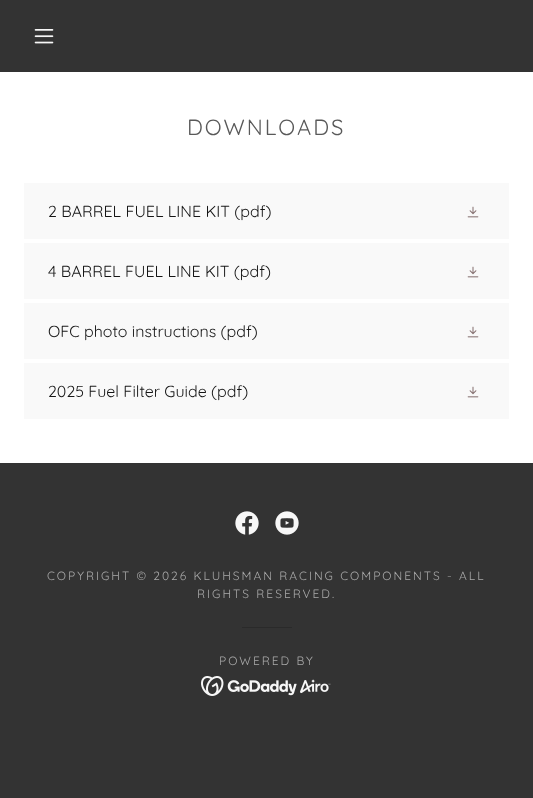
(async () => {
    const canvas = document.querySelector("canvas");
    canvas.width = 533;
    canvas.height = 798;
    const context = canvas.getContext("2d");
    context.miterLimit = 4;
    context.fontKerning = "normal";
    function write(s, x, y, font, color) {
        context.font = font;
        context.fillStyle = color;
        context.fillText(s, x, y);
    }
    function block(x, y, w, h, color) {
        context.fillStyle = color;
        context.fillRect(x, y, w, h);
    }
    async function photo(src, x, y, w, h) {
        const img = new Image();
        img.src = src;
        await img.decode();
        context.drawImage(img, x, y, w, h);
    }

    block(0, 0, 533, 798, "rgb(51, 51, 51)");
    await photo("media/1.png", 34, 29, 20, 15);
    block(0, 72, 533, 391, "rgb(255, 255, 255)");
    context.letterSpacing = "2px";
    write("DOWNLOADS", 187, 135, "22px Quicksand", "rgb(89, 89, 89)");
    block(24, 183, 485, 56, "rgb(249, 249, 249)");
    context.letterSpacing = "0px";
    write("2 BARREL FUEL LINE KIT (pdf)", 48, 217, "16px Quicksand", "rgb(21, 21, 21)");
    await photo("media/2.png", 467, 206, 12, 12);
    block(24, 243, 485, 56, "rgb(249, 249, 249)");
    write("4 BARREL FUEL LINE KIT (pdf)", 48, 277, "16px Quicksand", "rgb(21, 21, 21)");
    await photo("media/2.png", 467, 266, 12, 12);
    block(24, 303, 485, 56, "rgb(249, 249, 249)");
    write("OFC photo instructions (pdf)", 48, 337, "16px Quicksand", "rgb(21, 21, 21)");
    await photo("media/2.png", 467, 326, 12, 12);
    block(24, 363, 485, 56, "rgb(249, 249, 249)");
    write("2025 Fuel Filter Guide (pdf)", 48, 397, "16px Quicksand", "rgb(21, 21, 21)");
    await photo("media/2.png", 467, 386, 12, 12);
    await photo("media/3.png", 235, 511, 24, 24);
    await photo("media/4.png", 275, 511, 24, 24);
    context.letterSpacing = "2px";
    write("COPYRIGHT © 2026 KLUHSMAN RACING COMPONENTS - ALL", 47, 580, "12px Quicksand", "rgb(169, 169, 169)");
    write("RIGHTS RESERVED.", 197, 598, "12px Quicksand", "rgb(169, 169, 169)");
    block(242, 627, 50, 1, "rgb(42, 42, 42)");
    write("POWERED BY", 219, 665, "12px Quicksand", "rgb(169, 169, 169)");
    await photo("media/5.png", 201, 676, 130, 20);
})();
